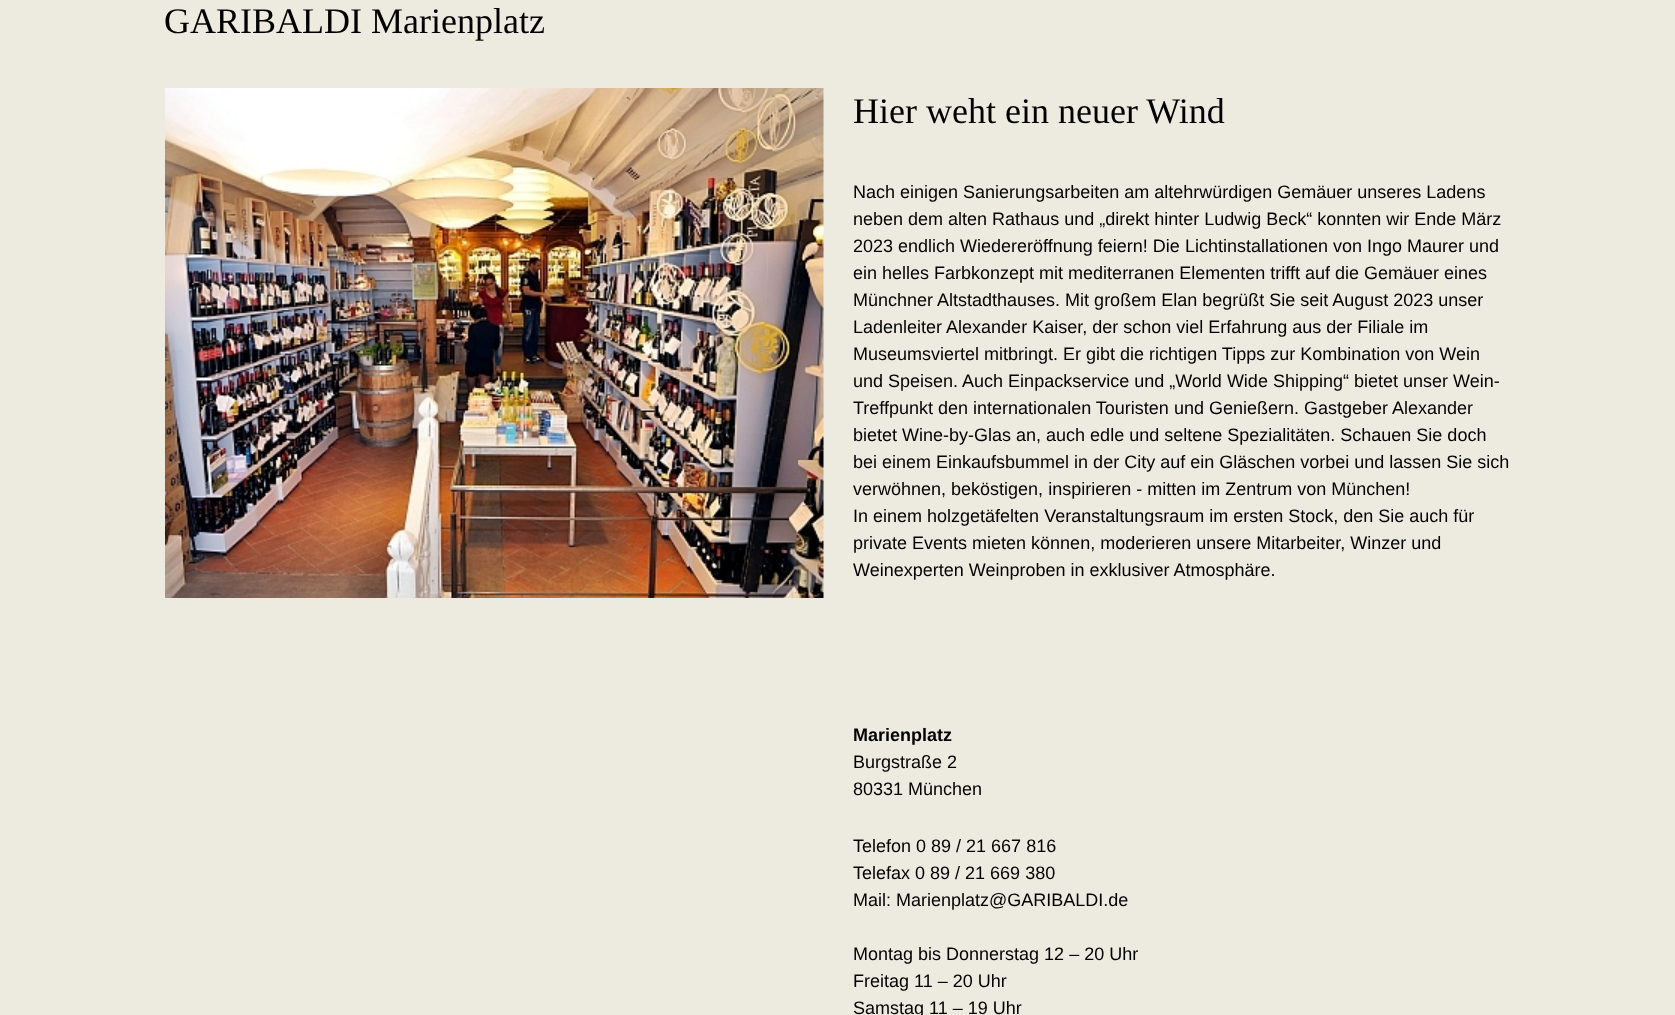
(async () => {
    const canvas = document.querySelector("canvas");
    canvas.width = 1675;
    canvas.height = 1015;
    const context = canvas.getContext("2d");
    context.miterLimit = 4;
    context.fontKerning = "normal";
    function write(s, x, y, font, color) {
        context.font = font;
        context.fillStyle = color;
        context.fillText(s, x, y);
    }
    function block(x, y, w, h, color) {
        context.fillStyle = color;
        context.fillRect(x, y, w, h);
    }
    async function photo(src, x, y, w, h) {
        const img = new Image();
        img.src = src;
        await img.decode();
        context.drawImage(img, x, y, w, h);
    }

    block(0, 0, 1675, 1015, "rgb(237, 234, 224)");
    write("GARIBALDI Marienplatz", 164, 33, "36px Liberation Serif", "rgb(0, 0, 0)");
    await photo("media/1.png", 165, 88, 659, 510);
    write("Hier weht ein neuer Wind", 853, 123, "36px Liberation Serif", "rgb(0, 0, 0)");
    write("Nach einigen Sanierungsarbeiten am altehrwürdigen Gemäuer unseres Ladens", 853, 198, "18px Liberation Sans", "rgb(0, 0, 0)");
    write("neben dem alten Rathaus und „direkt hinter Ludwig Beck“ konnten wir Ende März", 853, 225, "18px Liberation Sans", "rgb(0, 0, 0)");
    write("2023 endlich Wiedereröffnung feiern! Die Lichtinstallationen von Ingo Maurer und", 853, 252, "18px Liberation Sans", "rgb(0, 0, 0)");
    write("ein helles Farbkonzept mit mediterranen Elementen trifft auf die Gemäuer eines", 853, 279, "18px Liberation Sans", "rgb(0, 0, 0)");
    write("Münchner Altstadthauses. Mit großem Elan begrüßt Sie seit August 2023 unser", 853, 306, "18px Liberation Sans", "rgb(0, 0, 0)");
    write("Ladenleiter Alexander Kaiser, der schon viel Erfahrung aus der Filiale im", 853, 333, "18px Liberation Sans", "rgb(0, 0, 0)");
    write("Museumsviertel mitbringt. Er gibt die richtigen Tipps zur Kombination von Wein", 853, 360, "18px Liberation Sans", "rgb(0, 0, 0)");
    write("und Speisen. Auch Einpackservice und „World Wide Shipping“ bietet unser Wein-", 853, 387, "18px Liberation Sans", "rgb(0, 0, 0)");
    write("Treffpunkt den internationalen Touristen und Genießern. Gastgeber Alexander", 853, 414, "18px Liberation Sans", "rgb(0, 0, 0)");
    write("bietet Wine-by-Glas an, auch edle und seltene Spezialitäten. Schauen Sie doch", 853, 441, "18px Liberation Sans", "rgb(0, 0, 0)");
    write("bei einem Einkaufsbummel in der City auf ein Gläschen vorbei und lassen Sie sich", 853, 468, "18px Liberation Sans", "rgb(0, 0, 0)");
    write("verwöhnen, beköstigen, inspirieren - mitten im Zentrum von München!", 853, 495, "18px Liberation Sans", "rgb(0, 0, 0)");
    write("In einem holzgetäfelten Veranstaltungsraum im ersten Stock, den Sie auch für", 853, 522, "18px Liberation Sans", "rgb(0, 0, 0)");
    write("private Events mieten können, moderieren unsere Mitarbeiter, Winzer und", 853, 549, "18px Liberation Sans", "rgb(0, 0, 0)");
    write("Weinexperten Weinproben in exklusiver Atmosphäre.", 853, 576, "18px Liberation Sans", "rgb(0, 0, 0)");
    write("Marienplatz", 853, 741, "bold 18px Liberation Sans", "rgb(0, 0, 0)");
    write("Burgstraße 2", 853, 768, "18px Liberation Sans", "rgb(0, 0, 0)");
    write("80331 München", 853, 795, "18px Liberation Sans", "rgb(0, 0, 0)");
    write("Telefon 0 89 / 21 667 816", 853, 852, "18px Liberation Sans", "rgb(0, 0, 0)");
    write("Telefax 0 89 / 21 669 380", 853, 879, "18px Liberation Sans", "rgb(0, 0, 0)");
    write("Mail: Marienplatz@GARIBALDI.de", 853, 906, "18px Liberation Sans", "rgb(0, 0, 0)");
    write("Montag bis Donnerstag 12 – 20 Uhr", 853, 960, "18px Liberation Sans", "rgb(0, 0, 0)");
    write("Freitag 11 – 20 Uhr", 853, 987, "18px Liberation Sans", "rgb(0, 0, 0)");
    write("Samstag 11 – 19 Uhr", 853, 1014, "18px Liberation Sans", "rgb(0, 0, 0)");
})();
